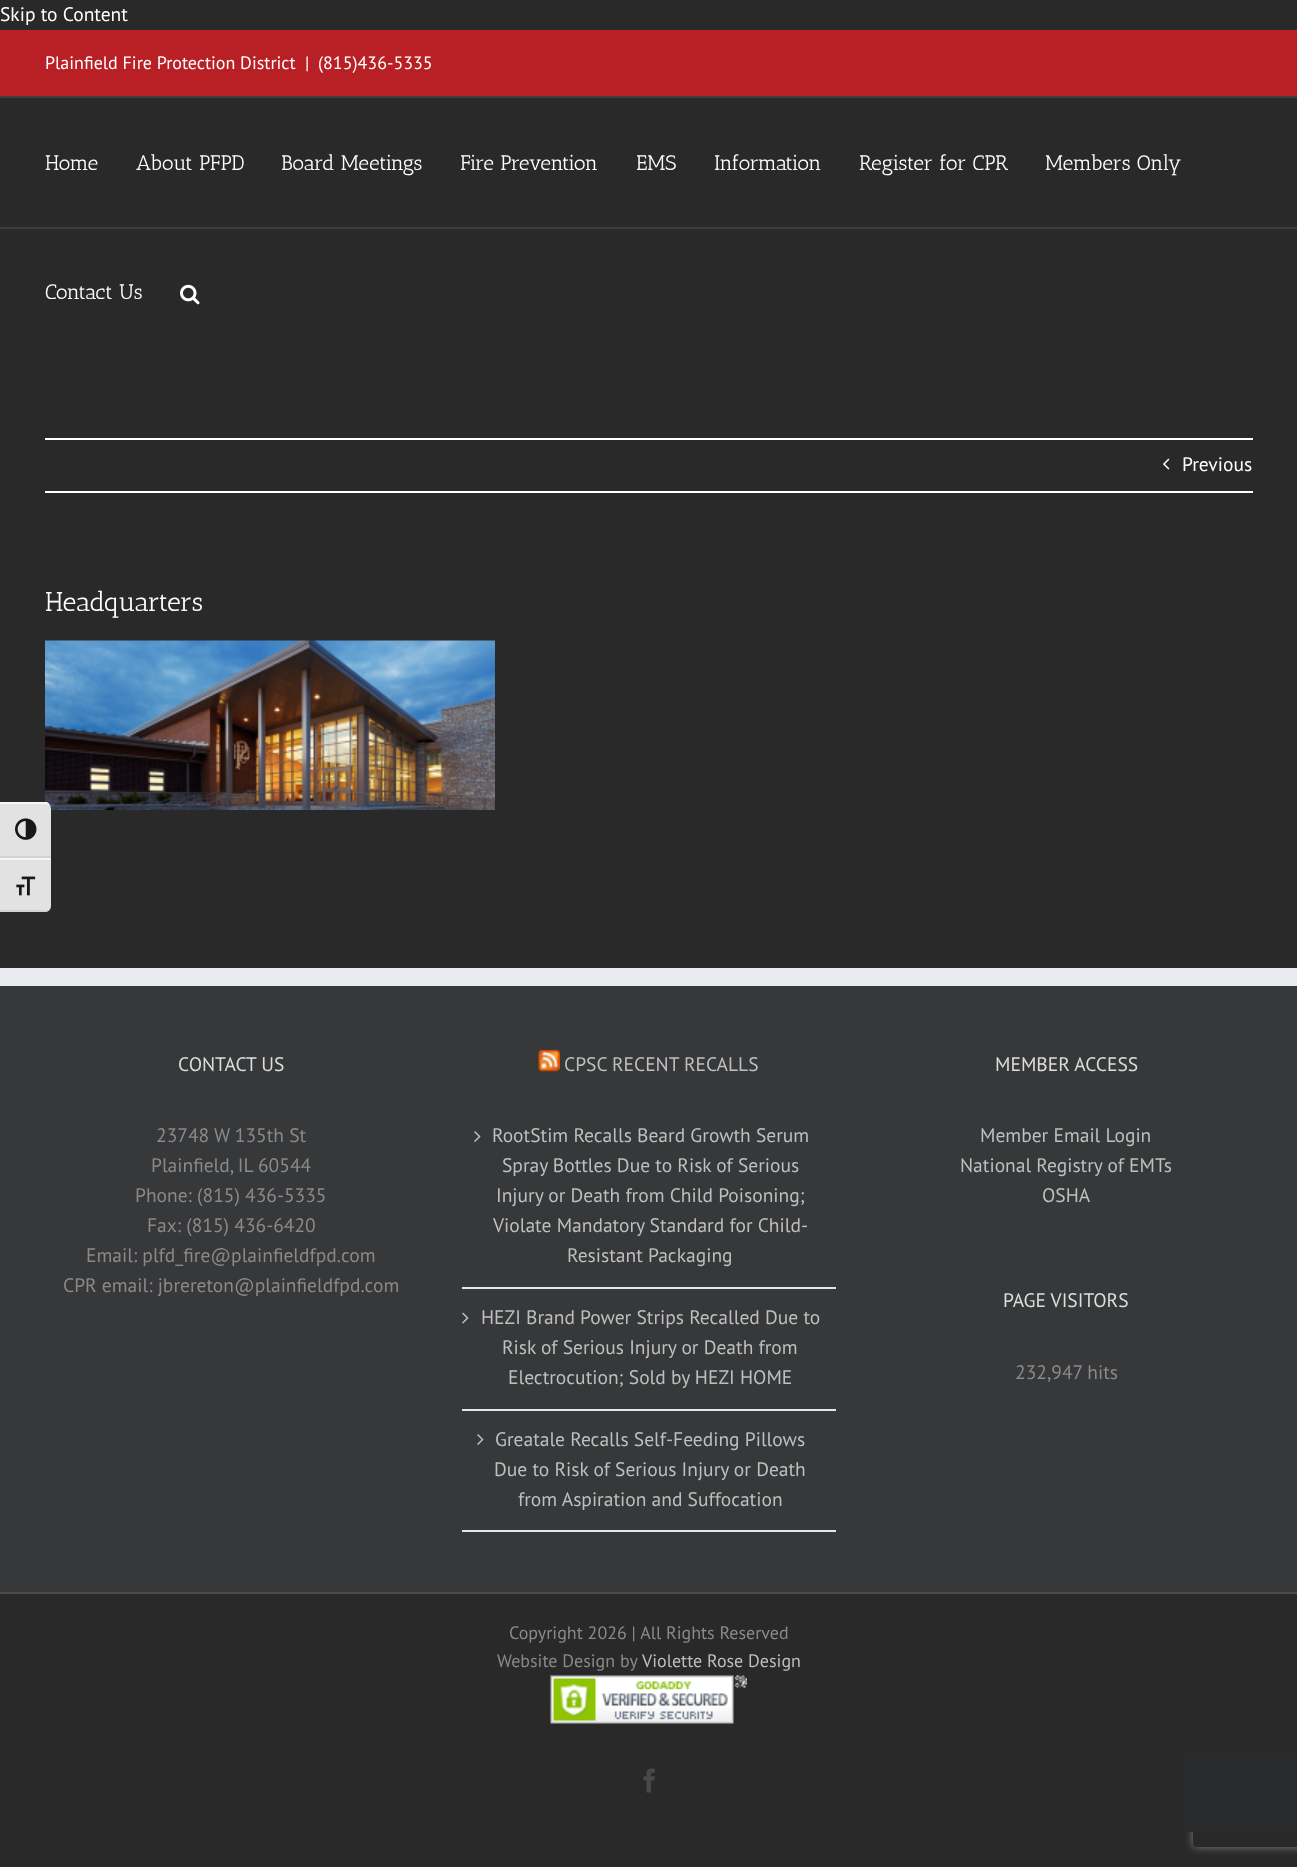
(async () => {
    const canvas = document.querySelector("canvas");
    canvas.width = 1297;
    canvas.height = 1867;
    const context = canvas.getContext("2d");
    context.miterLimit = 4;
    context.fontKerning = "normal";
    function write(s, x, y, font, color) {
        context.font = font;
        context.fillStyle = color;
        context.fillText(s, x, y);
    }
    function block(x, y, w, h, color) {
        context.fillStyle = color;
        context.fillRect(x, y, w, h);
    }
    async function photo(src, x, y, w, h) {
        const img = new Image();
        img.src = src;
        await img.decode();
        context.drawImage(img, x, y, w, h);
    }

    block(0, 0, 1297, 1867, "rgb(41, 41, 42)");
    write("Skip to Content", 0, 21, "19.5px PT Sans", "rgb(255, 255, 255)");
    await photo("media/5.png", 45, 640, 450, 170);
    context.fillStyle = "rgb(226, 226, 226)";
    context.beginPath();
    context.roundRect(0, 803, 51, 55, [0, 6, 0, 0]);
    context.fill();
    context.fillStyle = "rgb(245, 245, 245)";
    context.beginPath();
    context.moveTo(0, 804);
    context.lineTo(45, 804);
    context.bezierCurveTo(48, 804, 51, 806, 51, 808);
    context.bezierCurveTo(51, 806, 49, 803, 47, 802);
    context.lineTo(0, 802);
    context.closePath();
    context.fill();
    block(0, 856, 51, 2, "rgb(210, 210, 210)");
    await photo("media/1.png", 15, 818, 22, 22);
    context.fillStyle = "rgb(226, 226, 226)";
    context.beginPath();
    context.roundRect(0, 858, 51, 54, [0, 0, 6, 0]);
    context.fill();
    block(0, 858, 51, 2, "rgb(245, 245, 245)");
    context.fillStyle = "rgb(210, 210, 210)";
    context.beginPath();
    context.moveTo(0, 910);
    context.lineTo(0, 912);
    context.lineTo(45, 912);
    context.bezierCurveTo(48, 912, 51, 909, 51, 906);
    context.bezierCurveTo(51, 908, 48, 910, 45, 910);
    context.closePath();
    context.fill();
    await photo("media/2.png", 16, 876, 20, 20);
    block(0, 30, 1297, 66, "rgb(185, 32, 37)");
    block(0, 96, 1297, 2, "rgb(62, 62, 62)");
    write("Plainfield Fire Protection District", 45, 69, "18px PT Sans", "rgb(255, 255, 255)");
    write("|", 305, 69, "18px PT Sans", "rgb(255, 255, 255)");
    write("(815)436-5335", 318, 69, "18px PT Sans", "rgb(255, 255, 255)");
    block(0, 227, 1297, 2, "rgb(62, 62, 62)");
    write("Home", 45, 170, "21px Antic Slab", "rgb(255, 255, 255)");
    write("About PFPD", 136, 170, "21px Antic Slab", "rgb(255, 255, 255)");
    write("Board Meetings", 281, 170, "21px Antic Slab", "rgb(255, 255, 255)");
    write("Fire Prevention", 460, 170, "21px Antic Slab", "rgb(255, 255, 255)");
    write("EMS", 636, 170, "21px Antic Slab", "rgb(255, 255, 255)");
    write("Information", 714, 170, "21px Antic Slab", "rgb(255, 255, 255)");
    write("Register for CPR", 859, 170, "21px Antic Slab", "rgb(255, 255, 255)");
    write("Members Only", 1045, 170, "21px Antic Slab", "rgb(255, 255, 255)");
    write("Contact Us", 45, 299, "21px Antic Slab", "rgb(255, 255, 255)");
    await photo("media/3.png", 180, 284, 20, 21);
    block(45, 438, 1208, 2, "rgb(255, 255, 255)");
    block(45, 491, 1208, 2, "rgb(255, 255, 255)");
    await photo("media/4.png", 1163, 458, 7, 12);
    write("Previous", 1182, 471, "19.5px PT Sans", "rgb(255, 255, 255)");
    write("Headquarters", 45, 611, "27px Antic Slab", "rgb(255, 255, 255)");
    block(0, 986, 1297, 606, "rgb(54, 56, 57)");
    block(0, 968, 1297, 18, "rgb(233, 234, 238)");
    write("CONTACT US", 178, 1071, "19.5px PT Sans", "rgb(221, 221, 221)");
    write("23748 W 135th St", 156, 1142, "19.5px PT Sans", "rgb(140, 137, 137)");
    write("Plainfield, IL 60544", 151, 1172, "19.5px PT Sans", "rgb(140, 137, 137)");
    write("Phone: (815) 436-5335", 135, 1202, "19.5px PT Sans", "rgb(140, 137, 137)");
    write("Fax: (815) 436-6420", 147, 1232, "19.5px PT Sans", "rgb(140, 137, 137)");
    write("Email: plfd_fire@plainfieldfpd.com", 86, 1262, "19.5px PT Sans", "rgb(140, 137, 137)");
    write("CPR email: jbrereton@plainfieldfpd.com", 63, 1292, "19.5px PT Sans", "rgb(140, 137, 137)");
    await photo("media/6.png", 538, 1050, 22, 22);
    write("CPSC RECENT RECALLS", 564, 1071, "19.5px PT Sans", "rgb(191, 191, 191)");
    block(462, 1287, 374, 2, "rgb(231, 230, 230)");
    await photo("media/7.png", 474, 1131, 7, 11);
    write("RootStim Recalls Beard Growth Serum", 492, 1142, "19.5px PT Sans", "rgb(191, 191, 191)");
    write("Spray Bottles Due to Risk of Serious", 502, 1172, "19.5px PT Sans", "rgb(191, 191, 191)");
    write("Injury or Death from Child Poisoning;", 496, 1202, "19.5px PT Sans", "rgb(191, 191, 191)");
    write("Violate Mandatory Standard for Child-", 493, 1232, "19.5px PT Sans", "rgb(191, 191, 191)");
    write("Resistant Packaging", 567, 1262, "19.5px PT Sans", "rgb(191, 191, 191)");
    block(462, 1409, 374, 2, "rgb(231, 230, 230)");
    await photo("media/8.png", 462, 1312, 7, 12);
    write("HEZI Brand Power Strips Recalled Due to", 481, 1324, "19.5px PT Sans", "rgb(191, 191, 191)");
    write("Risk of Serious Injury or Death from", 502, 1354, "19.5px PT Sans", "rgb(191, 191, 191)");
    write("Electrocution; Sold by HEZI HOME", 508, 1384, "19.5px PT Sans", "rgb(191, 191, 191)");
    block(462, 1530, 374, 2, "rgb(231, 230, 230)");
    await photo("media/7.png", 477, 1434, 7, 11);
    write("Greatale Recalls Self-Feeding Pillows", 495, 1446, "19.5px PT Sans", "rgb(191, 191, 191)");
    write("Due to Risk of Serious Injury or Death", 494, 1476, "19.5px PT Sans", "rgb(191, 191, 191)");
    write("from Aspiration and Suffocation", 518, 1506, "19.5px PT Sans", "rgb(191, 191, 191)");
    write("MEMBER ACCESS", 995, 1071, "19.5px PT Sans", "rgb(221, 221, 221)");
    write("Member Email Login", 980, 1142, "19.5px PT Sans", "rgb(191, 191, 191)");
    write("National Registry of EMTs", 960, 1172, "19.5px PT Sans", "rgb(191, 191, 191)");
    write("OSHA", 1042, 1202, "19.5px PT Sans", "rgb(191, 191, 191)");
    write("PAGE VISITORS", 1003, 1307, "19.5px PT Sans", "rgb(221, 221, 221)");
    write("232,947 hits", 1015, 1379, "19.5px PT Sans", "rgb(140, 137, 137)");
    context.save();
    context.beginPath();
    context.moveTo(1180, 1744);
    context.lineTo(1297, 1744);
    context.lineTo(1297, 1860);
    context.lineTo(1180, 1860);
    context.closePath();
    context.moveTo(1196, 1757);
    context.lineTo(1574, 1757);
    context.bezierCurveTo(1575.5, 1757, 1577, 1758.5, 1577, 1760);
    context.lineTo(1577, 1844);
    context.bezierCurveTo(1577, 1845.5, 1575.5, 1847, 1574, 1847);
    context.lineTo(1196, 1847);
    context.bezierCurveTo(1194.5, 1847, 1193, 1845.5, 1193, 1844);
    context.lineTo(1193, 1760);
    context.bezierCurveTo(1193, 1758.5, 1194.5, 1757, 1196, 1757);
    context.closePath();
    context.clip("evenodd");
    context.fillStyle = "rgb(128, 128, 128)";
    context.filter = "blur(4px)";
    context.beginPath();
    context.roundRect(1193, 1757, 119, 90, 3);
    context.fill();
    context.filter = "none";
    context.restore();
    block(1185, 1749, 112, 83, "rgb(40, 42, 43)");
    block(0, 1592, 1297, 2, "rgb(75, 76, 77)");
    write("Copyright 2026 | All Rights Reserved", 509, 1639, "18px PT Sans", "rgb(140, 137, 137)");
    write("Website Design by", 497, 1667, "18px PT Sans", "rgb(140, 137, 137)");
    write("Violette Rose Design", 642, 1667, "18px PT Sans", "rgb(191, 191, 191)");
    await photo("media/9.png", 550, 1675, 197, 49);
    await photo("media/10.png", 643, 1768, 12, 25);
})();
